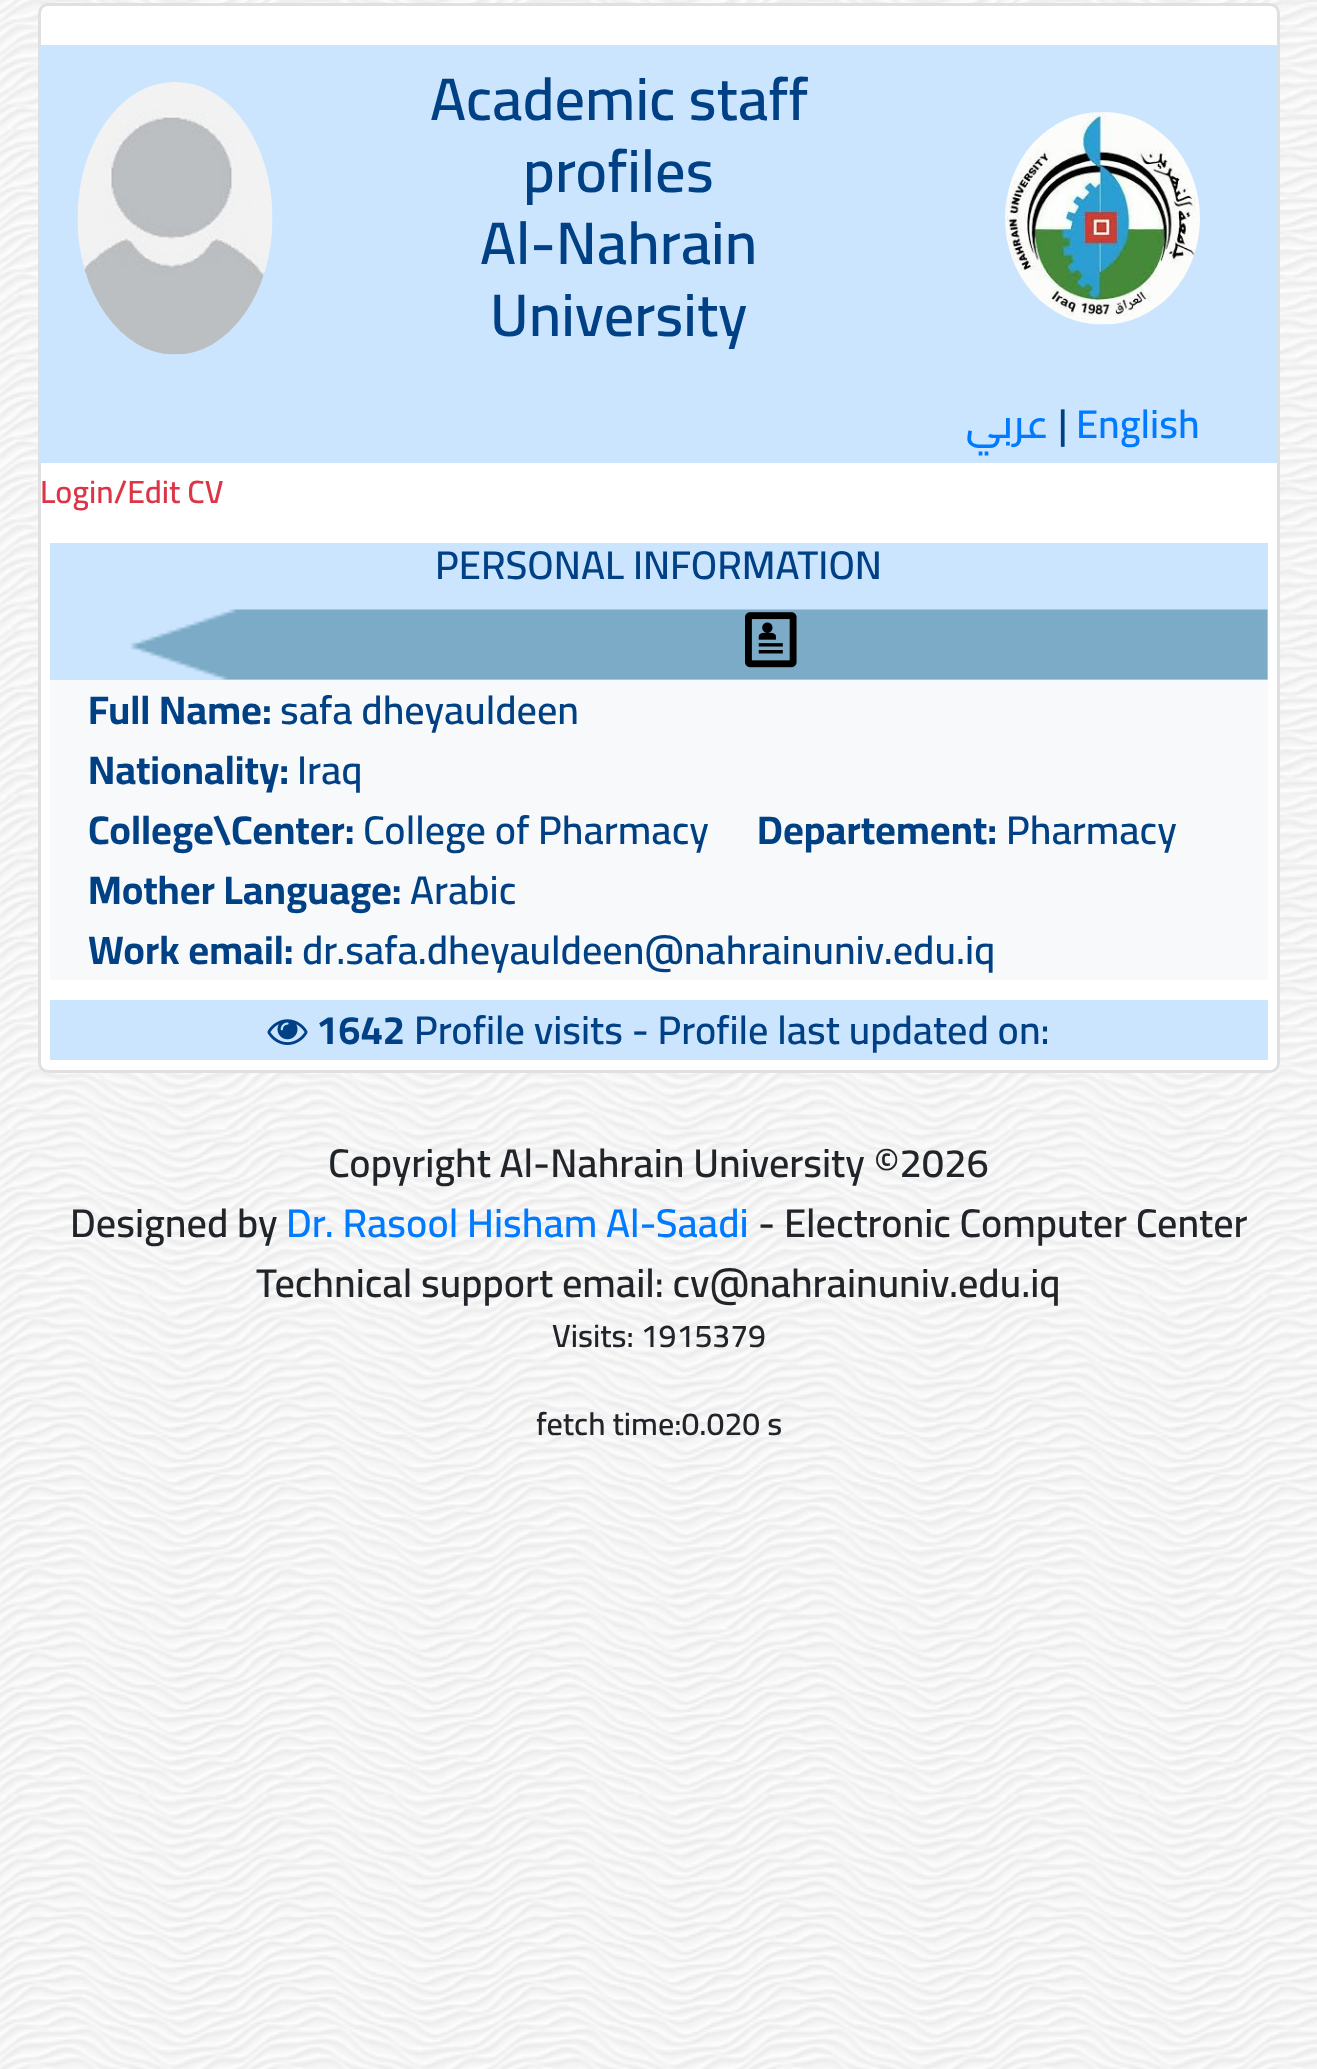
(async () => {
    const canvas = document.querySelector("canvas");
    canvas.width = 1317;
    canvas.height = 2069;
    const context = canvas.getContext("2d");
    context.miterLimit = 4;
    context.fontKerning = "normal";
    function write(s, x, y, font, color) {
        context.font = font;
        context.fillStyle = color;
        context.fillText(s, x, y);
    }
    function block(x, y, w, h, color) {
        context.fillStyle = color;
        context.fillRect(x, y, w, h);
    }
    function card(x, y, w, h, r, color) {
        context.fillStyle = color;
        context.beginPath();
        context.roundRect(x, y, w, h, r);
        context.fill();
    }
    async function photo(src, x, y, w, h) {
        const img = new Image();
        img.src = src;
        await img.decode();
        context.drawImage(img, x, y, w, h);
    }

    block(0, 0, 1317, 2069, "rgb(255, 255, 255)");
    await photo("media/1.png", 0, 0, 1317, 2069);
    card(38, 3, 1242, 1070, 10, "rgb(255, 255, 255)");
    context.beginPath();
    context.roundRect(39.5, 4.5, 1239, 1067, 8.5);
    context.strokeStyle = "rgba(0, 0, 0, 0.12)";
    context.lineWidth = 3;
    context.stroke();
    block(40, 45, 1238, 418, "rgb(204, 229, 255)");
    await photo("media/2.png", 77, 82, 196, 273);
    write("Academic staff", 430, 120, "600 60px Cairo", "rgb(0, 64, 133)");
    write("profiles", 523, 192, "600 60px Cairo", "rgb(0, 64, 133)");
    write("Al-Nahrain", 480, 264, "600 60px Cairo", "rgb(0, 64, 133)");
    write("University", 490, 336, "600 60px Cairo", "rgb(0, 64, 133)");
    await photo("media/3.png", 1005, 112, 195, 213);
    context.direction = "rtl";
    write("عربي", 1049, 438, "600 40px Cairo", "rgb(0, 123, 255)");
    context.direction = "ltr";
    write("|", 1058, 438, "600 40px Cairo", "rgb(0, 64, 133)");
    write("English", 1076, 438, "600 40px Cairo", "rgb(0, 123, 255)");
    write("Login/Edit CV", 40, 503, "600 32px Cairo", "rgb(220, 53, 69)");
    block(50, 543, 1218, 137, "rgb(204, 229, 255)");
    write("PERSONAL INFORMATION", 435, 579, "600 40px Cairo", "rgb(0, 64, 133)");
    await photo("media/4.png", 130, 609, 1138, 71);
    await photo("media/5.png", 745, 612, 52, 56);
    block(50, 680, 1218, 300, "rgb(248, 249, 250)");
    write("Full Name:", 88, 724, "bold 40px Cairo", "rgb(0, 64, 133)");
    write("safa dheyauldeen", 280, 724, "600 40px Cairo", "rgb(0, 64, 133)");
    write("Nationality:", 88, 784, "bold 40px Cairo", "rgb(0, 64, 133)");
    write("Iraq", 297, 784, "600 40px Cairo", "rgb(0, 64, 133)");
    write("College\\Center:", 88, 844, "bold 40px Cairo", "rgb(0, 64, 133)");
    write("College of Pharmacy", 363, 844, "600 40px Cairo", "rgb(0, 64, 133)");
    write("Departement:", 757, 844, "bold 40px Cairo", "rgb(0, 64, 133)");
    write("Pharmacy", 1006, 844, "600 40px Cairo", "rgb(0, 64, 133)");
    write("Mother Language:", 88, 904, "bold 40px Cairo", "rgb(0, 64, 133)");
    write("Arabic", 410, 904, "600 40px Cairo", "rgb(0, 64, 133)");
    write("Work email:", 88, 964, "bold 40px Cairo", "rgb(0, 64, 133)");
    write("dr.safa.dheyauldeen@nahrainuniv.edu.iq", 302, 964, "600 40px Cairo", "rgb(0, 64, 133)");
    block(50, 1000, 1218, 60, "rgb(204, 229, 255)");
    await photo("media/6.png", 267, 1019, 41, 26);
    write("1642", 316, 1044, "bold 40px Cairo", "rgb(0, 64, 133)");
    write("Profile visits - Profile last updated on:", 414, 1044, "600 40px Cairo", "rgb(0, 64, 133)");
    write("Copyright Al-Nahrain University ©2026", 328, 1177, "600 40px Cairo", "rgb(33, 37, 41)");
    write("Designed by", 70, 1237, "600 40px Cairo", "rgb(33, 37, 41)");
    write("Dr. Rasool Hisham Al-Saadi", 286, 1237, "600 40px Cairo", "rgb(0, 123, 255)");
    write("- Electronic Computer Center", 758, 1237, "600 40px Cairo", "rgb(33, 37, 41)");
    write("Technical support email: cv@nahrainuniv.edu.iq", 256, 1297, "600 40px Cairo", "rgb(33, 37, 41)");
    write("Visits: 1915379", 552, 1347, "600 32px Cairo", "rgb(33, 37, 41)");
    write("fetch time:0.020 s", 536, 1435, "600 32px Cairo", "rgb(33, 37, 41)");
})();
